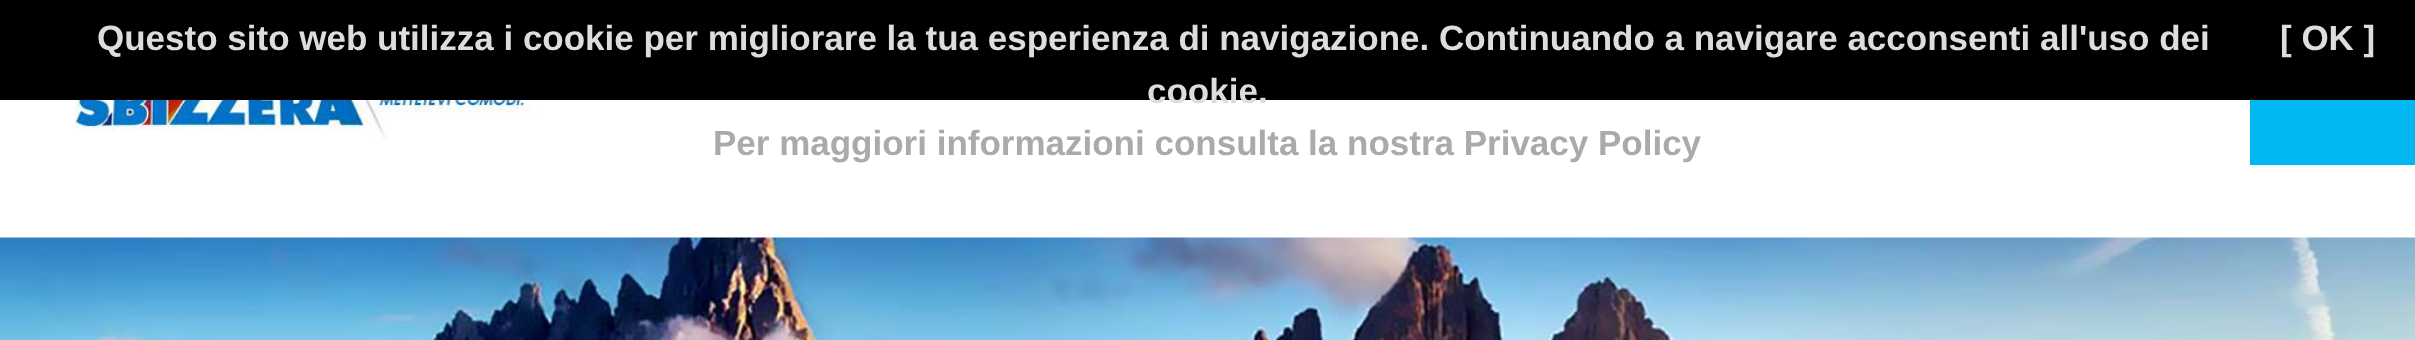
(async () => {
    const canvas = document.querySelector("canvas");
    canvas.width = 2415;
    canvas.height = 340;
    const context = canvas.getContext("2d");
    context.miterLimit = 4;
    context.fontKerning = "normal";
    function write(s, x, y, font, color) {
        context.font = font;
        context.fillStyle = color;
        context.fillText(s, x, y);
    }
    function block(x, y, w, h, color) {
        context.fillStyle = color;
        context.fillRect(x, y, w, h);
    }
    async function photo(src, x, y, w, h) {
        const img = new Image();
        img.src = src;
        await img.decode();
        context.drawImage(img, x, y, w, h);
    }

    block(0, 0, 2415, 340, "rgb(255, 255, 255)");
    block(0, 0, 2415, 100, "rgb(0, 0, 0)");
    write("Questo sito web utilizza i cookie per migliorare la tua esperienza di navigazione. Continuando a navigare acconsenti all'uso dei", 97, 50, "bold 35px Liberation Sans", "rgb(221, 221, 221)");
    write("[ OK ]", 2280, 50, "bold 35px Liberation Sans", "rgb(221, 221, 221)");
    write("cookie.", 1147, 103, "bold 35px Liberation Sans", "rgb(221, 221, 221)");
    write("Per maggiori informazioni consulta la nostra Privacy Policy", 713, 155, "bold 35px Liberation Sans", "rgb(170, 170, 170)");
    await photo("media/1.png", 75, 100, 577, 40);
    block(2250, 100, 165, 65, "rgb(1, 183, 242)");
    await photo("media/2.png", 0, 237, 2415, 103);
})();
